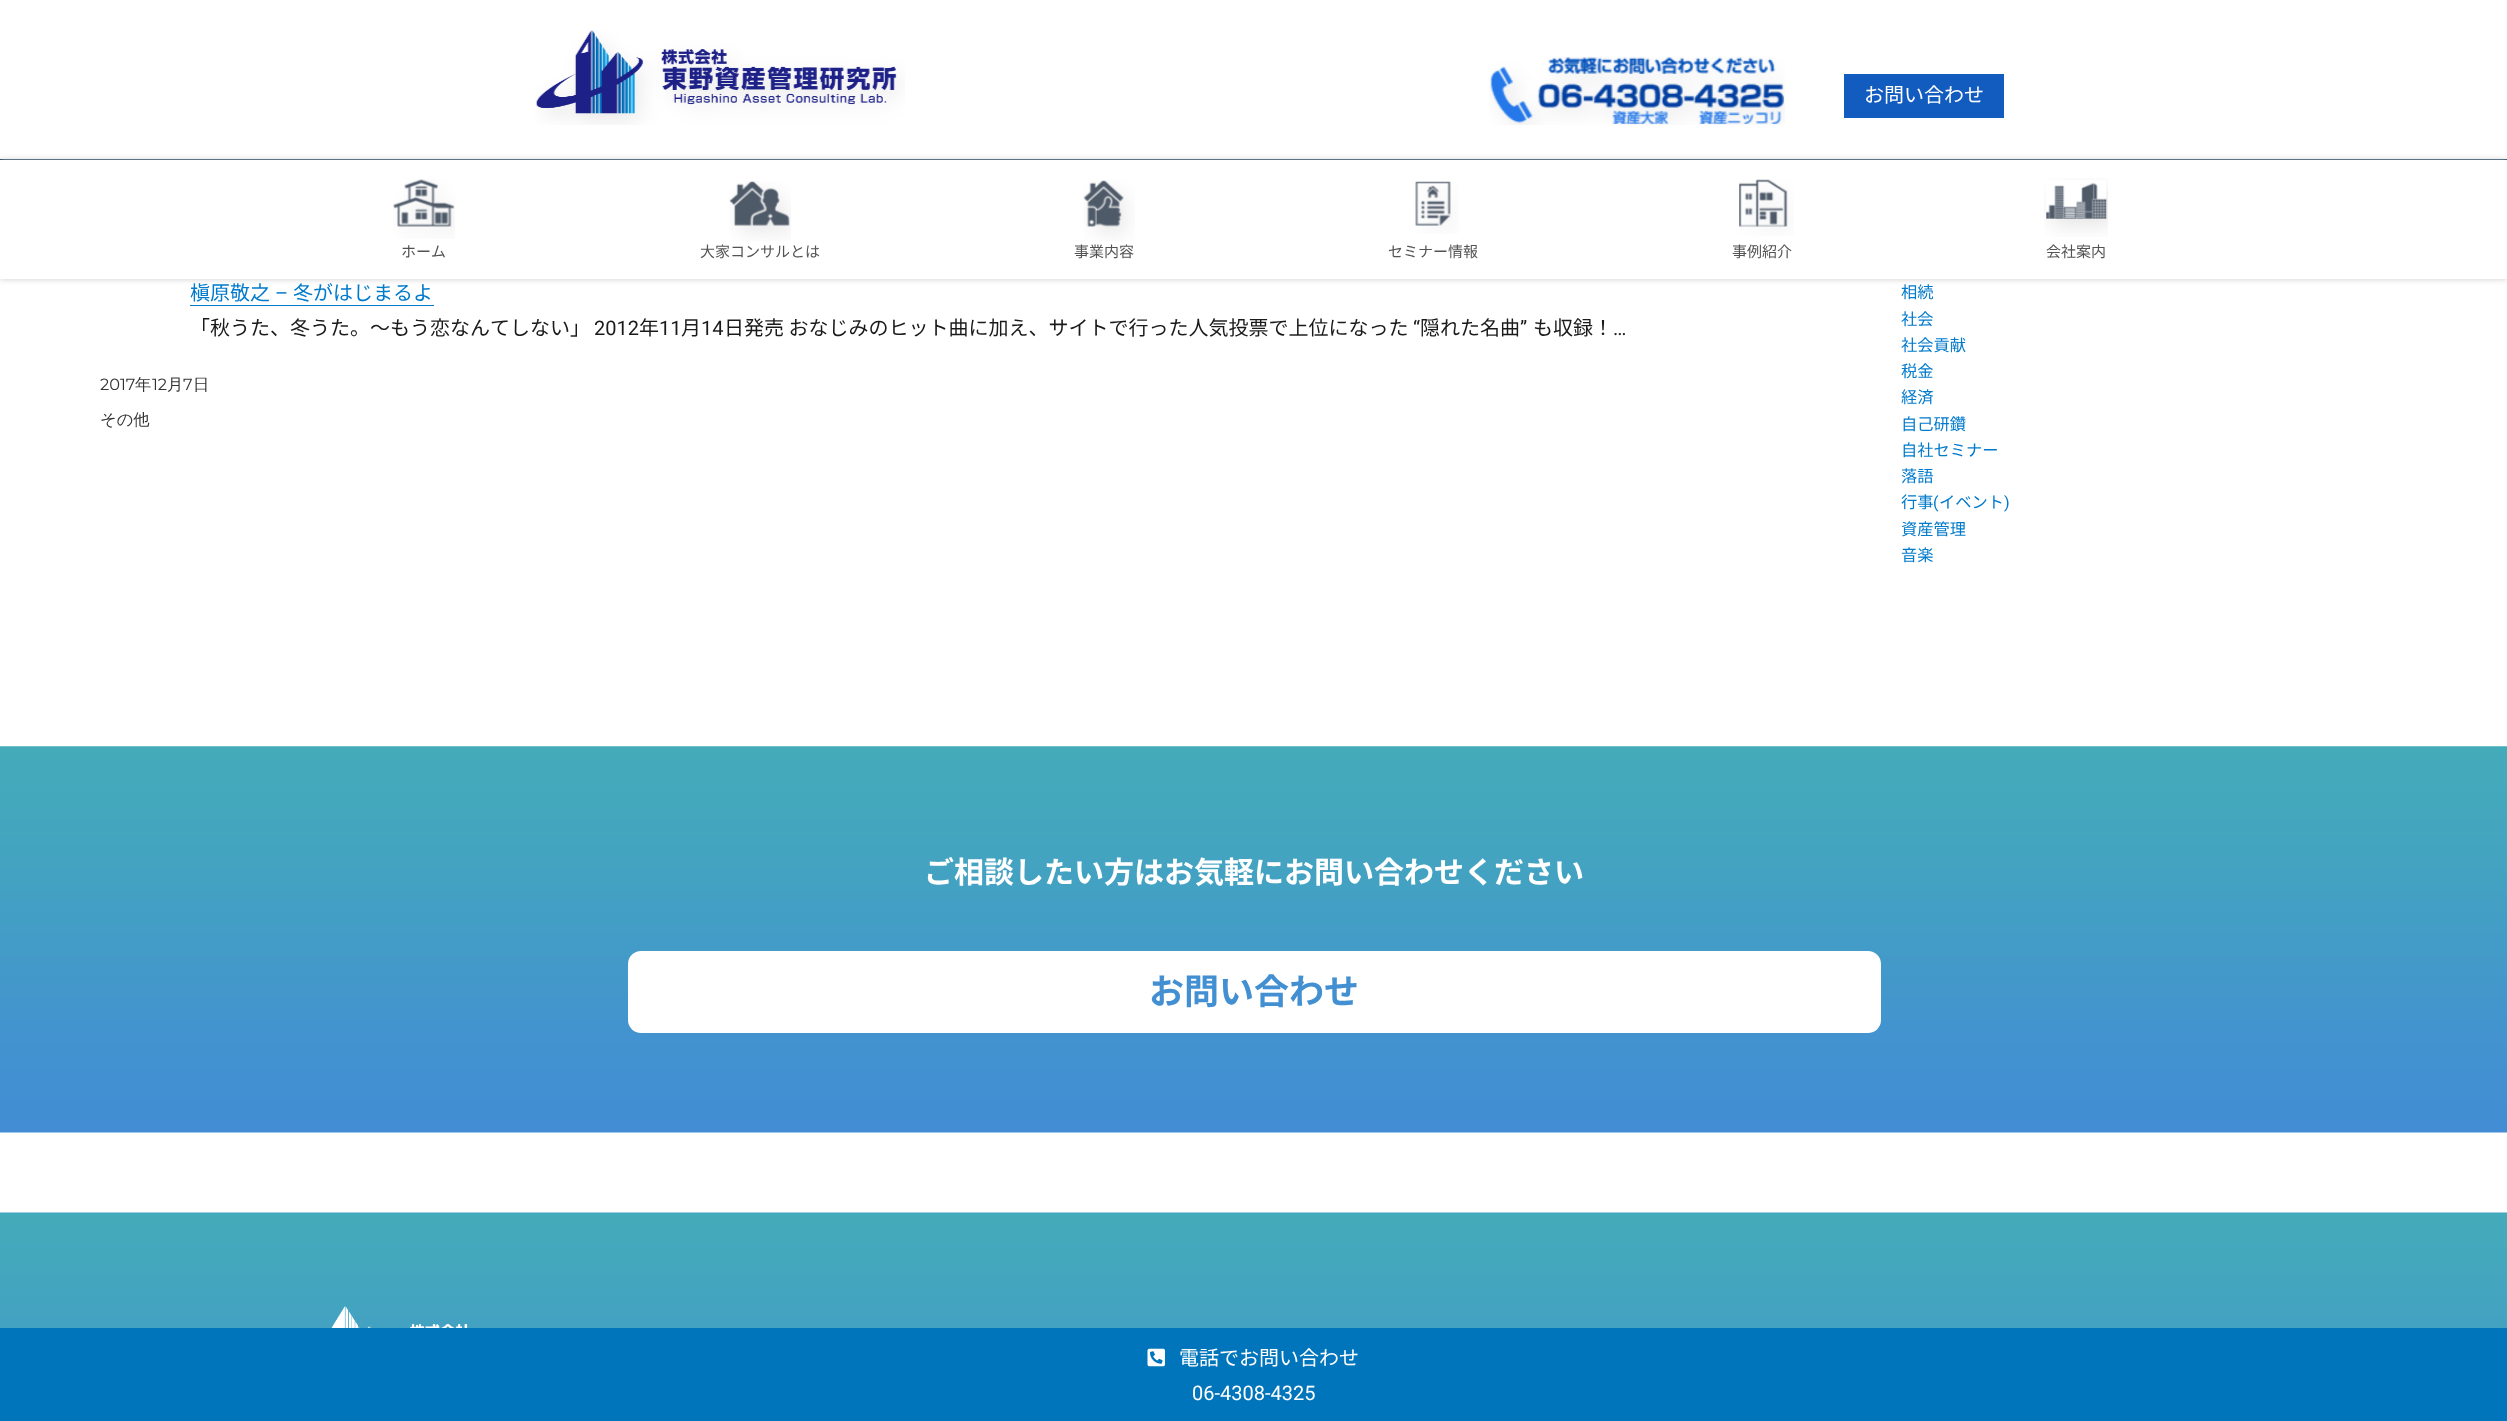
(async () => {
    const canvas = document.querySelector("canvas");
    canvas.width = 2507;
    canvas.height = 1421;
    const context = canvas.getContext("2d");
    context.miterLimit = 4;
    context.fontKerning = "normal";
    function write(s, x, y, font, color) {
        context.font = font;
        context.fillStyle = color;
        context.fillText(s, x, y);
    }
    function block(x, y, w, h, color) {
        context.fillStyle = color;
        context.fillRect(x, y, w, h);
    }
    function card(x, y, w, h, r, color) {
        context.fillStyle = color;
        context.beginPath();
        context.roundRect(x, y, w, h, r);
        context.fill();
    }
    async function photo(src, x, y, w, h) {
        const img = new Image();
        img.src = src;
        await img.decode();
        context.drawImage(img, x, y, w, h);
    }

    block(0, 0, 2507, 1421, "rgb(255, 255, 255)");
    await photo("media/1.png", 535, 30, 370, 95);
    await photo("media/2.png", 1489, 57, 296, 68);
    block(1844, 74, 160, 44, "rgb(18, 92, 191)");
    write("お問い合わせ", 1864, 102, "20px Noto Sans CJK JP", "rgb(255, 255, 255)");
    block(0, 159, 2507, 1, "rgb(4, 47, 79)");
    context.fillStyle = "rgb(204, 204, 204)";
    context.filter = "blur(3px)";
    context.beginPath();
    context.rect(0, 160, 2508, 119);
    context.fill();
    context.filter = "none";
    block(0, 160, 2507, 119, "rgb(255, 255, 255)");
    await photo("media/3.png", 393, 179, 62, 60);
    write("ホーム", 401, 257, "15px Noto Sans CJK JP", "rgb(83, 83, 83)");
    await photo("media/4.png", 729, 181, 62, 60);
    write("大家コンサルとは", 700, 257, "15px Noto Sans CJK JP", "rgb(83, 83, 83)");
    await photo("media/5.png", 1083, 180, 52, 61);
    write("事業内容", 1074, 257, "15px Noto Sans CJK JP", "rgb(83, 83, 83)");
    await photo("media/6.png", 1415, 181, 44, 53);
    write("セミナー情報", 1388, 257, "15px Noto Sans CJK JP", "rgb(83, 83, 83)");
    await photo("media/7.png", 1739, 179, 55, 57);
    write("事例紹介", 1732, 257, "15px Noto Sans CJK JP", "rgb(83, 83, 83)");
    await photo("media/8.png", 2044, 178, 64, 59);
    write("会社案内", 2046, 257, "15px Noto Sans CJK JP", "rgb(83, 83, 83)");
    write("槇原敬之", 190, 300, "20px Noto Sans CJK JP", "rgb(0, 122, 204)");
    write("–", 275, 300, "20px Roboto", "rgb(0, 122, 204)");
    context.beginPath();
    context.moveTo(190, 305);
    context.lineTo(190, 306);
    context.lineTo(434, 306);
    context.lineTo(434, 283);
    context.lineTo(434, 305);
    context.closePath();
    context.fill();
    write("冬がはじまるよ", 293, 300, "20px Noto Sans CJK JP", "rgb(0, 122, 204)");
    write("「秋うた、冬うた。～もう恋なんてしない」", 190, 335, "20px Noto Sans CJK JP", "rgb(26, 26, 26)");
    write("2012", 594, 335, "20px Roboto", "rgb(26, 26, 26)");
    write("年", 639, 335, "20px Noto Sans CJK JP", "rgb(26, 26, 26)");
    write("11", 659, 335, "20px Roboto", "rgb(26, 26, 26)");
    write("月", 681, 335, "20px Noto Sans CJK JP", "rgb(26, 26, 26)");
    write("14", 701, 335, "20px Roboto", "rgb(26, 26, 26)");
    write("日発売 おなじみのヒット曲に加え、サイトで行った人気投票で上位になった", 724, 335, "20px Noto Sans CJK JP", "rgb(26, 26, 26)");
    write("“", 1413, 335, "20px Roboto", "rgb(26, 26, 26)");
    write("隠れた名曲", 1420, 335, "20px Noto Sans CJK JP", "rgb(26, 26, 26)");
    write("”", 1520, 335, "20px Roboto", "rgb(26, 26, 26)");
    write("も収録！", 1533, 335, "20px Noto Sans CJK JP", "rgb(26, 26, 26)");
    write("…", 1613, 335, "20px Roboto", "rgb(26, 26, 26)");
    write("2017", 100, 390, "16.25px Montserrat", "rgb(51, 51, 51)");
    write("年", 135, 390, "500 16.25px WenQuanYi Zen Hei", "rgb(51, 51, 51)");
    write("12", 152, 390, "16.25px Montserrat", "rgb(51, 51, 51)");
    write("月", 167, 390, "500 16.25px WenQuanYi Zen Hei", "rgb(51, 51, 51)");
    write("7", 183, 390, "16.25px Montserrat", "rgb(51, 51, 51)");
    write("日", 193, 390, "500 16.25px WenQuanYi Zen Hei", "rgb(51, 51, 51)");
    write("その他", 100, 425, "500 16.25px WenQuanYi Zen Hei", "rgb(51, 51, 51)");
    write("相続", 1901, 298, "16.25px Noto Sans CJK JP", "rgb(0, 122, 204)");
    write("社会", 1901, 325, "16.25px Noto Sans CJK JP", "rgb(0, 122, 204)");
    write("社会貢献", 1901, 351, "16.25px Noto Sans CJK JP", "rgb(0, 122, 204)");
    write("税金", 1901, 377, "16.25px Noto Sans CJK JP", "rgb(0, 122, 204)");
    write("経済", 1901, 403, "16.25px Noto Sans CJK JP", "rgb(0, 122, 204)");
    write("自己研鑽", 1901, 430, "16.25px Noto Sans CJK JP", "rgb(0, 122, 204)");
    write("自社セミナー", 1901, 456, "16.25px Noto Sans CJK JP", "rgb(0, 122, 204)");
    write("落語", 1901, 482, "16.25px Noto Sans CJK JP", "rgb(0, 122, 204)");
    write("行事", 1901, 508, "16.25px Noto Sans CJK JP", "rgb(0, 122, 204)");
    write("(", 1933, 508, "16.25px Roboto", "rgb(0, 122, 204)");
    write("イベント", 1939, 508, "16.25px Noto Sans CJK JP", "rgb(0, 122, 204)");
    write(")", 2004, 508, "16.25px Roboto", "rgb(0, 122, 204)");
    write("資産管理", 1901, 535, "16.25px Noto Sans CJK JP", "rgb(0, 122, 204)");
    write("音楽", 1901, 561, "16.25px Noto Sans CJK JP", "rgb(0, 122, 204)");
    await photo("media/9.png", 0, 746, 2507, 387);
    write("ご相談したい方はお気軽にお問い合わせください", 924, 883, "bold 30px Noto Sans CJK JP", "rgb(255, 255, 255)");
    card(628, 951, 1253, 82, 13, "rgb(255, 255, 255)");
    write("お問い合わせ", 1149, 1004, "bold 35px Noto Sans CJK JP", "rgb(66, 144, 209)");
    await photo("media/10.png", 0, 1212, 2507, 116);
    await photo("media/11.png", 331, 1306, 139, 22);
    block(0, 1328, 2507, 93, "rgb(0, 117, 187)");
    await photo("media/12.png", 1147, 1348, 18, 19);
    write("電話でお問い合わせ", 1179, 1365, "20px Noto Sans CJK JP", "rgb(255, 255, 255)");
    write("06-4308-4325", 1192, 1400, "20px Roboto", "rgb(255, 255, 255)");
})();
